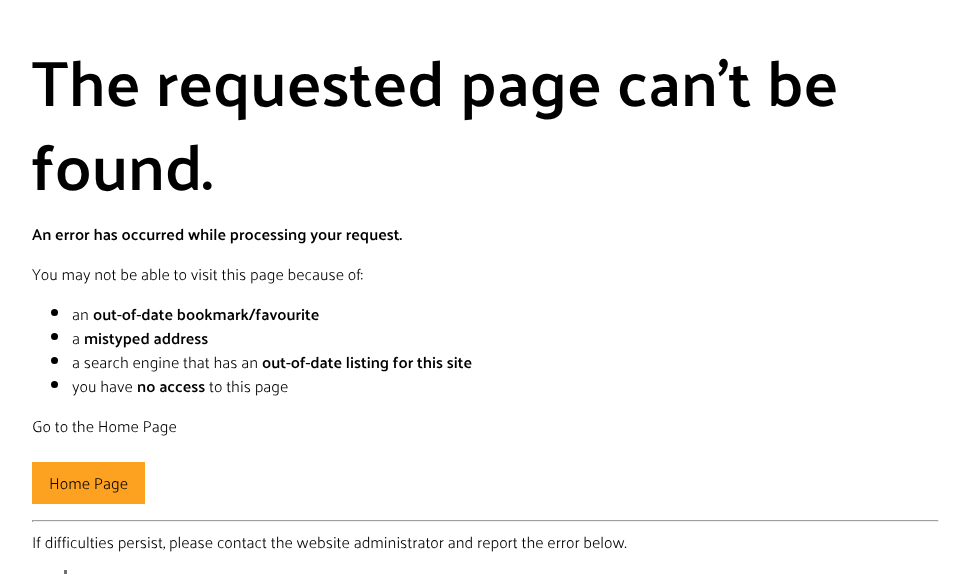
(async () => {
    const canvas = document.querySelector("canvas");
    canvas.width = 971;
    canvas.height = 574;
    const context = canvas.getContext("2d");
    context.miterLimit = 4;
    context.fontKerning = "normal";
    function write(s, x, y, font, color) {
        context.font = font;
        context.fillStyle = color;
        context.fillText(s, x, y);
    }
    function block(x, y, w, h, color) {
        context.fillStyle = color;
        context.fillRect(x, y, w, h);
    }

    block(0, 0, 971, 574, "rgb(255, 255, 255)");
    write("The requested page can't be", 32, 106, "600 64.5px Palanquin", "rgb(0, 0, 0)");
    write("found.", 32, 190, "600 64.5px Palanquin", "rgb(0, 0, 0)");
    write("An error has occurred while processing your request.", 32, 240, "600 16px Palanquin", "rgb(0, 0, 0)");
    write("You may not be able to visit this page because of:", 32, 280, "300 16px Palanquin", "rgb(0, 0, 0)");
    context.beginPath();
    context.arc(54.5, 312.5, 3.5, 0, Math.PI * 2);
    context.fill();
    write("an", 72, 320, "300 16px Palanquin", "rgb(0, 0, 0)");
    write("out-of-date bookmark/favourite", 93, 320, "600 16px Palanquin", "rgb(0, 0, 0)");
    context.beginPath();
    context.arc(54.5, 336.5, 3.5, 0, Math.PI * 2);
    context.fill();
    write("a", 72, 344, "300 16px Palanquin", "rgb(0, 0, 0)");
    write("mistyped address", 84, 344, "600 16px Palanquin", "rgb(0, 0, 0)");
    context.beginPath();
    context.arc(54.5, 360.5, 3.5, 0, Math.PI * 2);
    context.fill();
    write("a search engine that has an", 72, 368, "300 16px Palanquin", "rgb(0, 0, 0)");
    write("out-of-date listing for this site", 262, 368, "600 16px Palanquin", "rgb(0, 0, 0)");
    context.beginPath();
    context.arc(54.5, 384.5, 3.5, 0, Math.PI * 2);
    context.fill();
    write("you have", 72, 392, "300 16px Palanquin", "rgb(0, 0, 0)");
    write("no access", 137, 392, "600 16px Palanquin", "rgb(0, 0, 0)");
    write("to this page", 209, 392, "300 16px Palanquin", "rgb(0, 0, 0)");
    write("Go to the Home Page", 32, 432, "300 16px Palanquin", "rgb(0, 0, 0)");
    block(32, 462, 113, 42, "rgb(253, 161, 33)");
    write("Home Page", 49, 489, "300 16px Palanquin", "rgb(0, 0, 0)");
    block(32, 520, 907, 1, "rgb(159, 159, 159)");
    block(938, 520, 1, 2, "rgb(238, 238, 238)");
    block(32, 521, 907, 1, "rgb(238, 238, 238)");
    block(32, 520, 1, 2, "rgb(159, 159, 159)");
    write("If difficulties persist, please contact the website administrator and report the error below.", 32, 548, "300 16px Palanquin", "rgb(0, 0, 0)");
    block(64, 570, 3, 4, "rgb(112, 112, 112)");
})();
